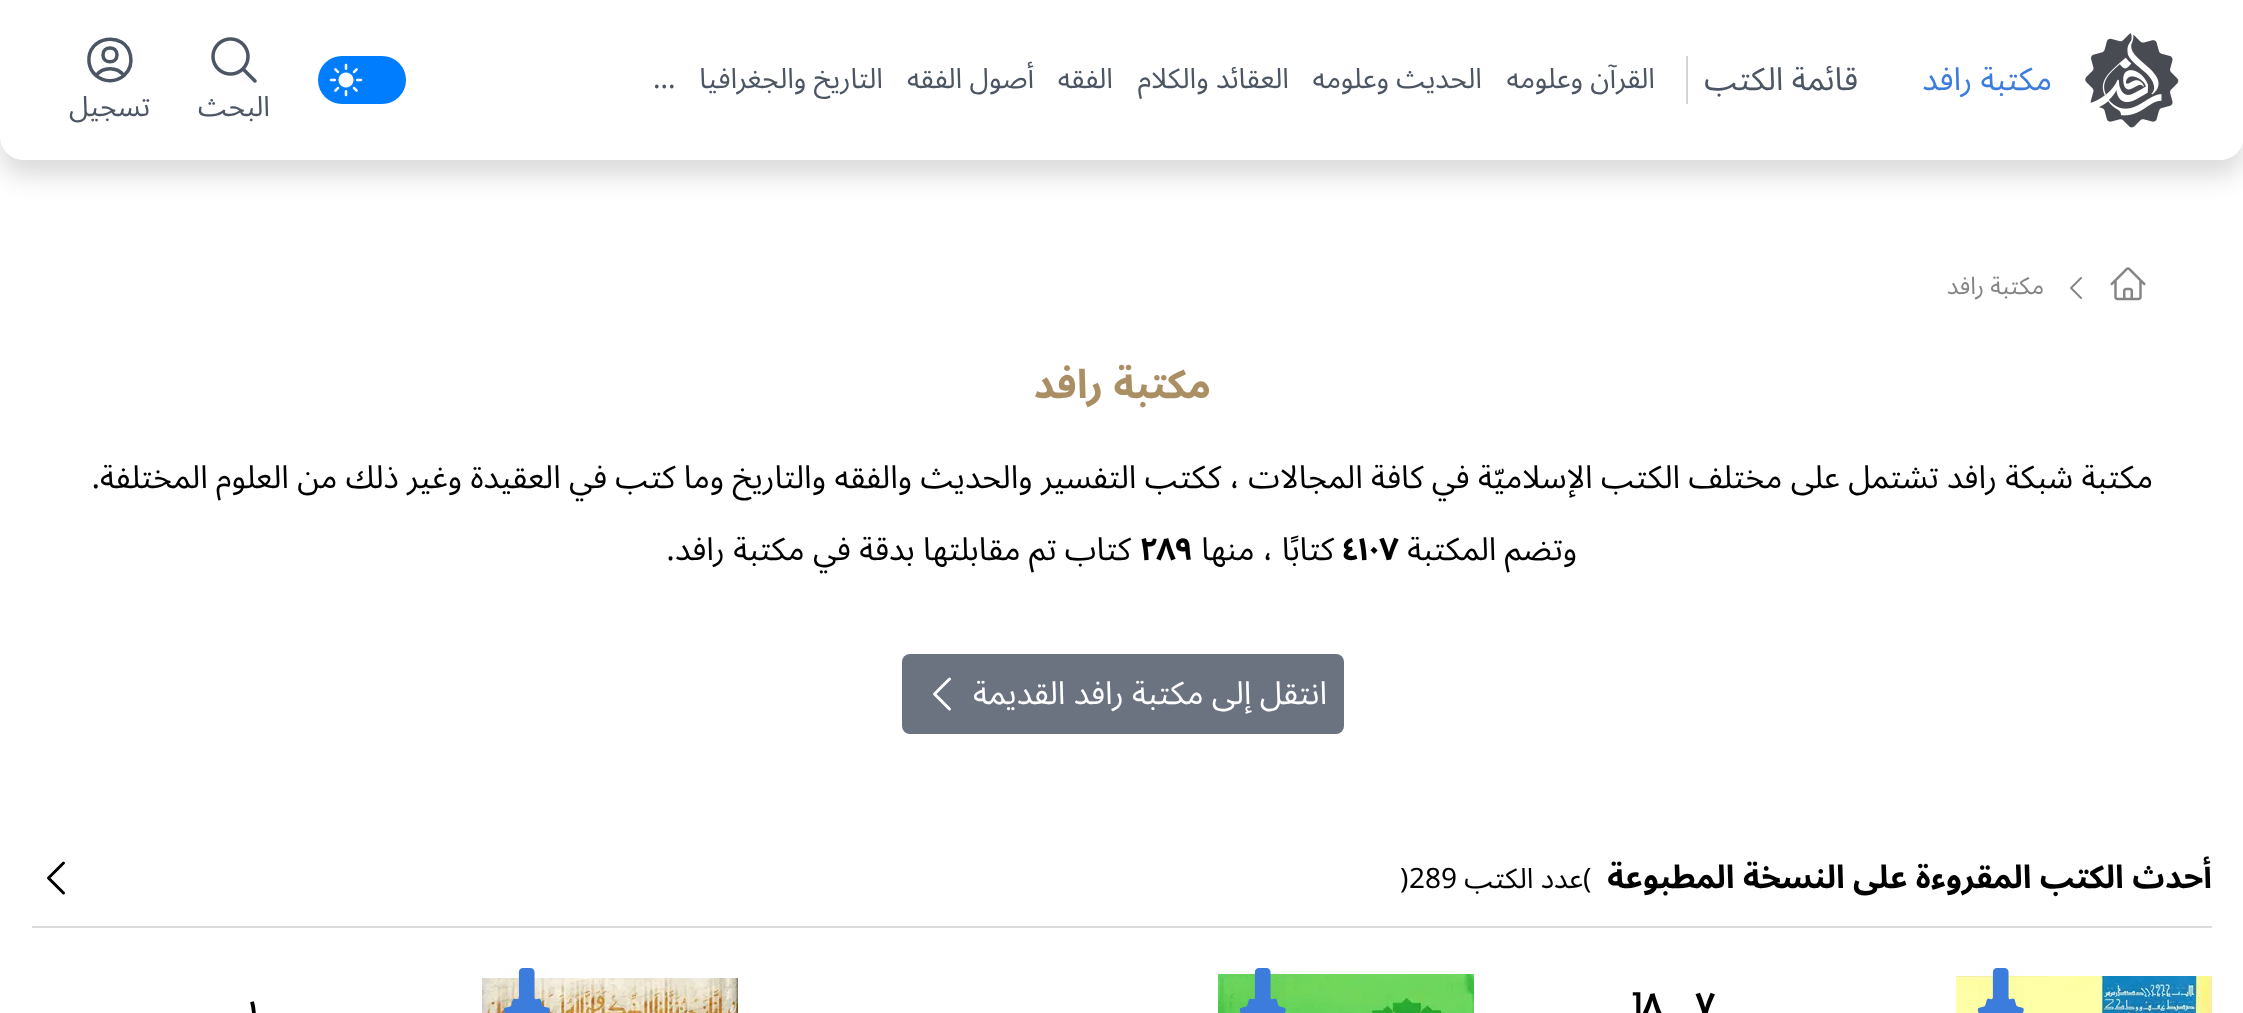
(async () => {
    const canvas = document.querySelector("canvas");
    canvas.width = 2243;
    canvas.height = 1013;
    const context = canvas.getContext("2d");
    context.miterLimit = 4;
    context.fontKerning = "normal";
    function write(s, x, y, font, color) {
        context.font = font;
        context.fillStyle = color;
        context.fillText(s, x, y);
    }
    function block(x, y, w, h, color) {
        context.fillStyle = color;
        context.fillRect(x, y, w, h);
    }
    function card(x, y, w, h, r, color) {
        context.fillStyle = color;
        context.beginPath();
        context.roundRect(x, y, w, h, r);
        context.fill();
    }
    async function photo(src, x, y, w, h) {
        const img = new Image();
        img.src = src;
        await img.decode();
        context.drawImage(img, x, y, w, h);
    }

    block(0, 0, 2243, 1013, "rgb(255, 255, 255)");
    context.fillStyle = "rgba(0, 0, 0, 0.14)";
    context.filter = "blur(12px)";
    context.beginPath();
    context.roundRect(0, 16, 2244, 160, 24);
    context.fill();
    context.filter = "none";
    context.fillStyle = "rgb(255, 255, 255)";
    context.beginPath();
    context.moveTo(0, 0);
    context.lineTo(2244, 0);
    context.lineTo(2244, 136);
    context.bezierCurveTo(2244, 149.5, 2233.5, 160, 2220, 160);
    context.lineTo(24, 160);
    context.bezierCurveTo(10.5, 160, 0, 149.5, 0, 136);
    context.closePath();
    context.fill();
    await photo("media/1.png", 2085, 33, 94, 95);
    context.direction = "rtl";
    write("مکتبة رافد", 2052, 90, "32px Noto Sans Arabic", "rgb(60, 124, 220)");
    block(1686, 56, 2, 48, "rgb(209, 213, 219)");
    write("قائمة الكتب", 1858, 90, "32px Noto Sans Arabic", "rgb(75, 85, 99)");
    write("القرآن وعلومه", 1655, 88, "28px Noto Sans Arabic", "rgb(75, 85, 99)");
    write("الحديث وعلومه", 1482, 88, "28px Noto Sans Arabic", "rgb(75, 85, 99)");
    write("العقائد والكلام", 1289, 88, "28px Noto Sans Arabic", "rgb(75, 85, 99)");
    write("الفقه", 1113, 88, "28px Noto Sans Arabic", "rgb(75, 85, 99)");
    write("أصول الفقه", 1034, 88, "28px Noto Sans Arabic", "rgb(75, 85, 99)");
    write("التاريخ والجغرافيا", 883, 88, "28px Noto Sans Arabic", "rgb(75, 85, 99)");
    context.direction = "ltr";
    write("...", 653, 88, "28px Noto Sans Arabic", "rgb(75, 85, 99)");
    card(318, 56, 88, 48, 24, "rgb(0, 124, 255)");
    await photo("media/2.png", 329, 63, 34, 34);
    await photo("media/3.png", 211, 37, 46, 46);
    context.direction = "rtl";
    write("البحث", 270, 116, "28px Noto Sans Arabic", "rgb(75, 85, 99)");
    context.beginPath();
    context.moveTo(124, 75.5);
    context.bezierCurveTo(117, 66.5, 103, 66.5, 96, 75.5);
    context.moveTo(124, 75.5);
    context.bezierCurveTo(129.5, 70.5, 132, 63, 130.5, 55.5);
    context.bezierCurveTo(125, 30, 86.5, 36, 89, 62);
    context.bezierCurveTo(89.5, 67, 92, 72, 96, 75.5);
    context.moveTo(124, 75.5);
    context.bezierCurveTo(116, 82.5, 104, 82.5, 96, 75.5);
    context.moveTo(117, 55);
    context.bezierCurveTo(117, 64, 103, 64, 103, 55);
    context.bezierCurveTo(103, 45.5, 117, 45.5, 117, 55);
    context.closePath();
    context.strokeStyle = "rgb(75, 85, 99)";
    context.lineWidth = 3.5;
    context.lineCap = "round";
    context.lineJoin = "round";
    context.stroke();
    write("تسجیل", 150, 116, "28px Noto Sans Arabic", "rgb(75, 85, 99)");
    await photo("media/4.png", 2110, 267, 36, 34);
    await photo("media/5.png", 2070, 277, 12, 22);
    write("مکتبة رافد", 2044, 294, "24px Noto Sans Arabic", "rgb(133, 133, 133)");
    write("مکتبة رافد", 1211, 398, "bold 40px Noto Sans Arabic", "rgb(171, 143, 100)");
    write("مكتبة شبكة رافد تشتمل على مختلف الكتب الإسلاميّة في كافة المجالات ، ككتب التفسير والحديث والفقه", 2153, 488, "32px Noto Sans Arabic", "rgb(0, 0, 0)");
    write("والتاريخ وما كتب في العقيدة وغير ذلك من العلوم المختلفة.", 826, 488, "32px Noto Sans Arabic", "rgb(0, 0, 0)");
    write("وتضم المكتبة", 1577, 560, "32px Noto Sans Arabic", "rgb(0, 0, 0)");
    context.direction = "ltr";
    write("٤١٠٧", 1342, 560, "bold 32px Noto Sans Arabic", "rgb(0, 0, 0)");
    context.direction = "rtl";
    write("كتابًا ، منها", 1334, 560, "32px Noto Sans Arabic", "rgb(0, 0, 0)");
    context.direction = "ltr";
    write("٢٨٩", 1140, 560, "bold 32px Noto Sans Arabic", "rgb(0, 0, 0)");
    context.direction = "rtl";
    write("كتاب تم مقابلتها بدقة في مكتبة رافد.", 1131, 560, "32px Noto Sans Arabic", "rgb(0, 0, 0)");
    card(902, 654, 442, 80, 8, "rgb(107, 114, 128)");
    write("انتقل إلی مکتبة رافد القدیمة", 1327, 704, "32px Noto Sans Arabic", "rgb(255, 255, 255)");
    context.beginPath();
    context.moveTo(949.5, 709);
    context.lineTo(934.5, 694);
    context.lineTo(949.5, 679);
    context.strokeStyle = "rgb(255, 255, 255)";
    context.lineWidth = 3;
    context.stroke();
    block(32, 926, 2180, 2, "rgb(220, 220, 220)");
    write("أحدث الكتب المقروءة على النسخة المطبوعة", 2212, 888, "bold 32px Noto Sans Arabic", "rgb(0, 0, 0)");
    context.direction = "ltr";
    write("(", 1583, 888, "28px Noto Sans", "rgb(0, 0, 0)");
    context.direction = "rtl";
    write("عدد الكتب", 1583, 888, "28px Noto Sans Arabic", "rgb(0, 0, 0)");
    context.direction = "ltr";
    write("289", 1409, 888, "28px Noto Sans Arabic", "rgb(0, 0, 0)");
    write(")", 1400, 888, "28px Noto Sans", "rgb(0, 0, 0)");
    context.beginPath();
    context.moveTo(63.5, 893);
    context.lineTo(48.5, 878);
    context.lineTo(63.5, 863);
    context.strokeStyle = "rgb(0, 0, 0)";
    context.stroke();
    await photo("media/7.png", 1956, 976, 256, 37);
    await photo("media/6.png", 1977, 968, 47, 45);
    write("٧", 1695, 1015, "bold 32px Noto Sans Arabic", "rgb(0, 0, 0)");
    write("٨", 1642, 1015, "bold 32px Noto Sans Arabic", "rgb(0, 0, 0)");
    write("]", 1632, 1015, "bold 32px Noto Sans", "rgb(0, 0, 0)");
    await photo("media/9.png", 1218, 974, 256, 39);
    await photo("media/8.png", 1239, 968, 47, 45);
    await photo("media/11.png", 482, 978, 256, 35);
    await photo("media/10.png", 503, 968, 47, 45);
    write("١", 249, 1019, "bold 26px Noto Sans Arabic", "rgb(0, 0, 0)");
})();
